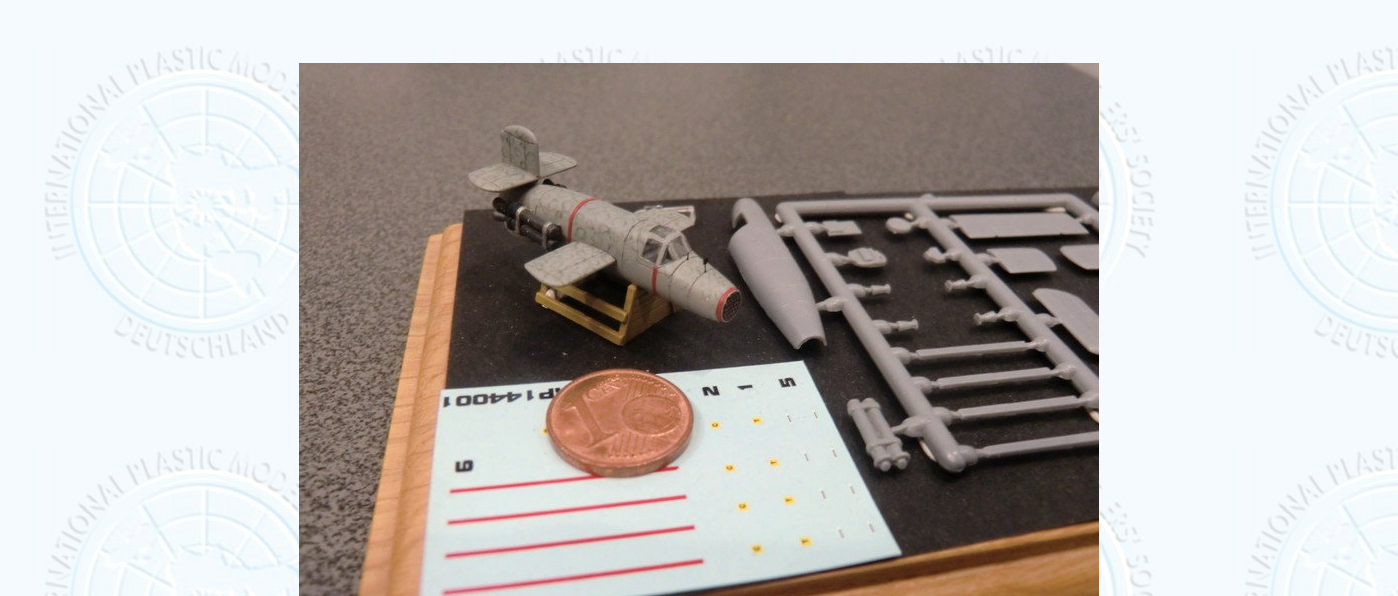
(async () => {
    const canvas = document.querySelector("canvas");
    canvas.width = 1398;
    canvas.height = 596;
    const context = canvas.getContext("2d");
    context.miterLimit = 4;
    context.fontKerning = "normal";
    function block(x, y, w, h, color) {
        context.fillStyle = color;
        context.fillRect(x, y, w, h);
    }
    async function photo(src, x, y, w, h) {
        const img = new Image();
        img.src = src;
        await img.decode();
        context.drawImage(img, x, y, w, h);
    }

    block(0, 0, 1398, 596, "rgb(255, 255, 255)");
    await photo("media/1.png", 0, 0, 1398, 596);
    await photo("media/2.png", 299, 63, 800, 533);
})();
